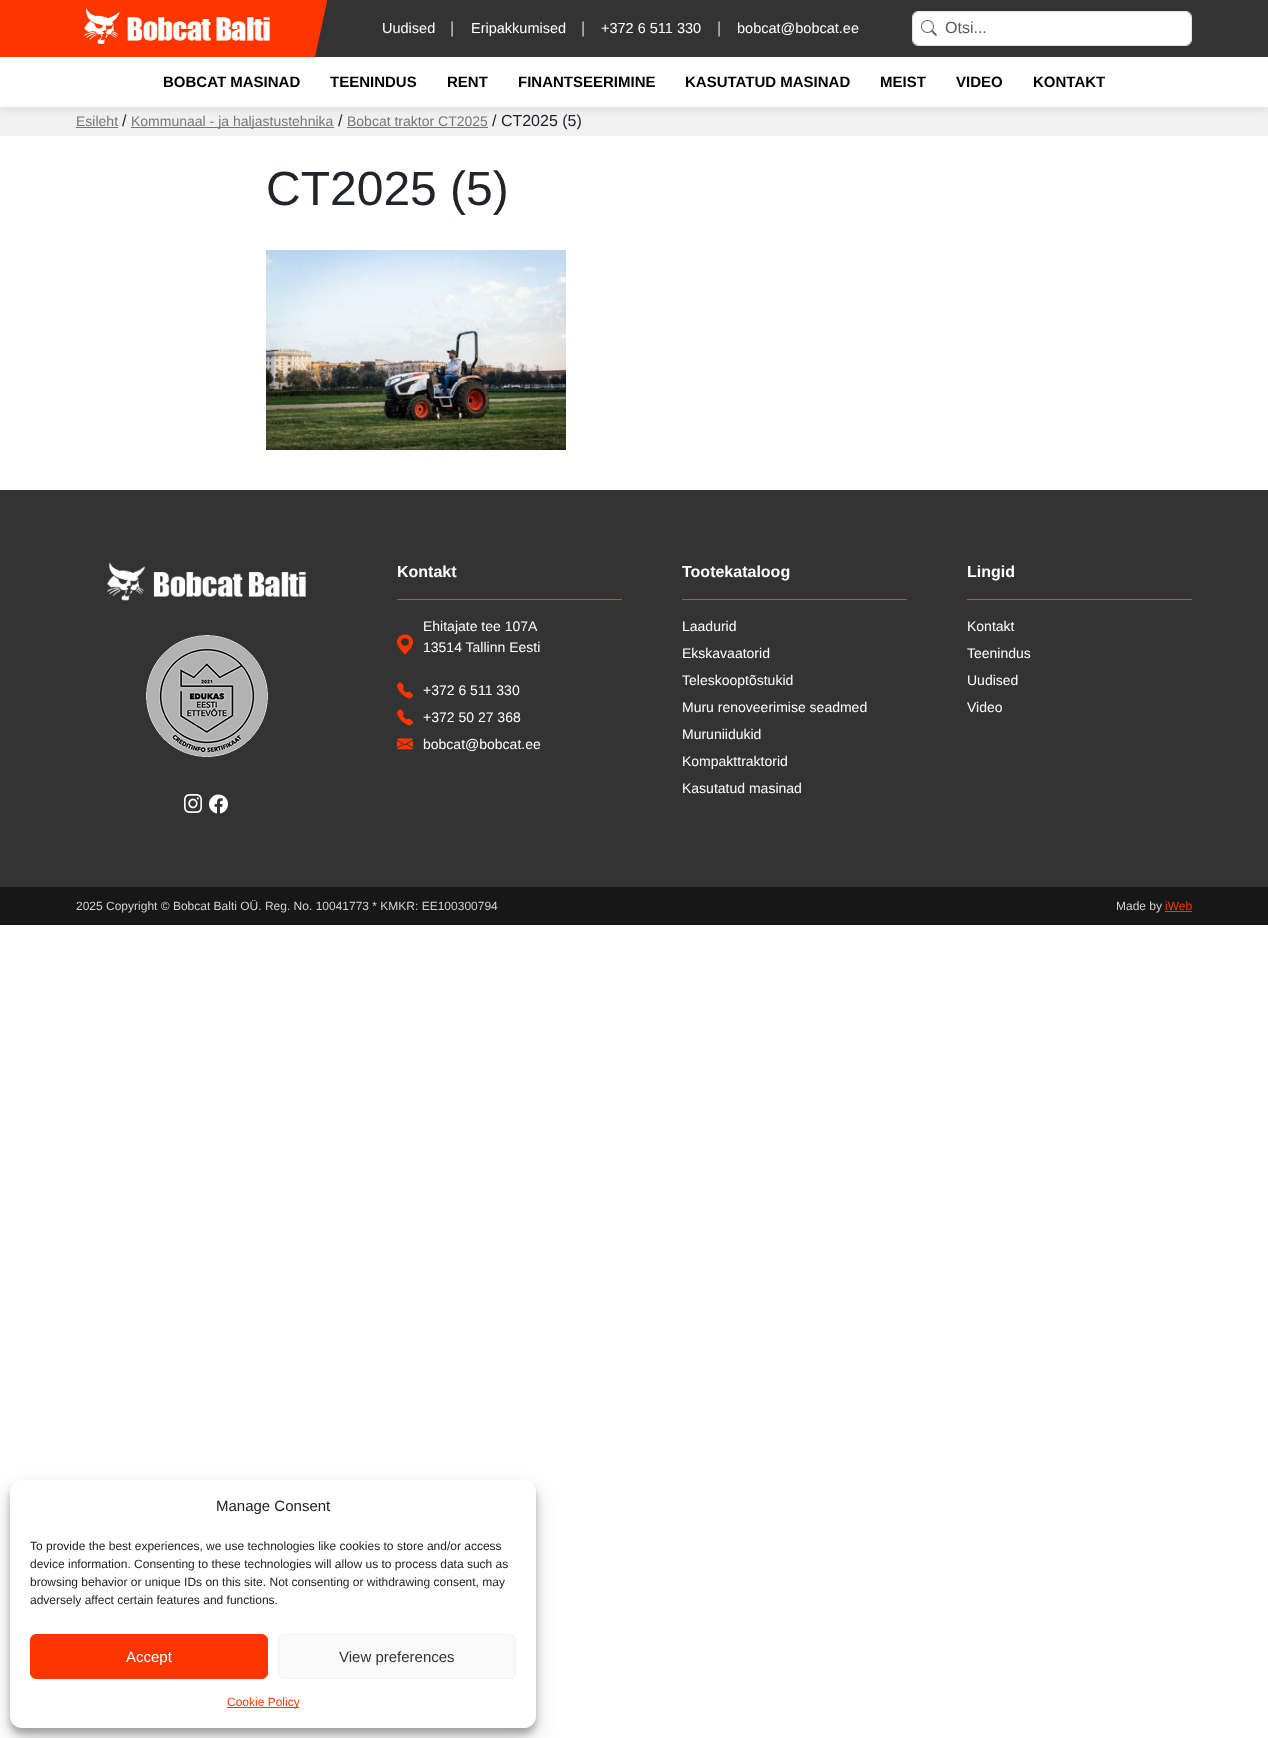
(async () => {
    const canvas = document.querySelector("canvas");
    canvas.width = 1268;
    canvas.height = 1738;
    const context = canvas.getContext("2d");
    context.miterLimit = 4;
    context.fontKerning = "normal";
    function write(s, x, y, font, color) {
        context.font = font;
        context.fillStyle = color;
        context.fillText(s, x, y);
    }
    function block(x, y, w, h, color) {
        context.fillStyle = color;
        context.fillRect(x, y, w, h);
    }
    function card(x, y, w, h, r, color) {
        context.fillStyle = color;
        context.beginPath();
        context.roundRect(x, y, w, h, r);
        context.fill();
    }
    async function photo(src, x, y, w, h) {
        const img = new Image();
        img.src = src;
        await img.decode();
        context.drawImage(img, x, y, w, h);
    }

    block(0, 0, 1268, 1738, "rgb(255, 255, 255)");
    block(0, 107, 1268, 29, "rgb(241, 241, 241)");
    context.fillStyle = "rgba(0, 0, 0, 0.1)";
    context.filter = "blur(4px)";
    context.beginPath();
    context.rect(0, 2, 1268, 107);
    context.fill();
    context.filter = "none";
    block(0, 57, 1268, 50, "rgb(255, 255, 255)");
    block(0, 0, 76, 57, "rgb(255, 53, 0)");
    block(315, 0, 953, 57, "rgb(51, 51, 51)");
    context.fillStyle = "rgb(255, 53, 0)";
    context.beginPath();
    context.moveTo(76, 0);
    context.lineTo(76, 57);
    context.lineTo(315, 57);
    context.lineTo(327, 2);
    context.lineTo(327, 0);
    context.closePath();
    context.fill();
    await photo("media/1.png", 84, 8, 186, 36);
    write("Uudised", 382, 33, "14.5px Liberation Sans", "rgb(255, 255, 255)");
    write("|", 450, 33, "16px Liberation Sans", "rgb(204, 204, 204)");
    write("Eripakkumised", 471, 33, "14.5px Liberation Sans", "rgb(255, 255, 255)");
    write("|", 581, 33, "16px Liberation Sans", "rgb(204, 204, 204)");
    write("+372 6 511 330", 601, 33, "14.5px Liberation Sans", "rgb(255, 255, 255)");
    write("|", 717, 33, "16px Liberation Sans", "rgb(204, 204, 204)");
    write("bobcat@bobcat.ee", 737, 33, "14.5px Liberation Sans", "rgb(255, 255, 255)");
    card(913, 12, 278, 33, 5, "rgb(255, 255, 255)");
    await photo("media/2.png", 921, 20, 16, 16);
    context.beginPath();
    context.roundRect(912.5, 11.5, 279, 34, 5.5);
    context.strokeStyle = "rgb(222, 226, 230)";
    context.stroke();
    write("Otsi...", 945, 33, "16px Liberation Sans", "rgb(89, 92, 95)");
    write("BOBCAT MASINAD", 163, 87, "bold 15px Liberation Sans", "rgb(0, 0, 0)");
    write("TEENINDUS", 330, 87, "bold 15px Liberation Sans", "rgb(0, 0, 0)");
    write("RENT", 447, 87, "bold 15px Liberation Sans", "rgb(0, 0, 0)");
    write("FINANTSEERIMINE", 518, 87, "bold 15px Liberation Sans", "rgb(0, 0, 0)");
    write("KASUTATUD MASINAD", 685, 87, "bold 15px Liberation Sans", "rgb(0, 0, 0)");
    write("MEIST", 880, 87, "bold 15px Liberation Sans", "rgb(0, 0, 0)");
    write("VIDEO", 956, 87, "bold 15px Liberation Sans", "rgb(0, 0, 0)");
    write("KONTAKT", 1033, 87, "bold 15px Liberation Sans", "rgb(0, 0, 0)");
    write("Esileht", 76, 126, "14px Liberation Sans", "rgb(118, 118, 118)");
    block(76, 127, 42, 1, "rgb(118, 118, 118)");
    write("/", 122, 126, "16px Liberation Sans", "rgb(33, 37, 41)");
    block(131, 127, 203, 1, "rgb(118, 118, 118)");
    write("Kommunaal - ja haljastustehnika", 131, 126, "14px Liberation Sans", "rgb(118, 118, 118)");
    write("/", 338, 126, "16px Liberation Sans", "rgb(33, 37, 41)");
    write("Bobcat traktor CT2025", 347, 126, "14px Liberation Sans", "rgb(118, 118, 118)");
    block(347, 127, 141, 1, "rgb(118, 118, 118)");
    write("/ CT2025 (5)", 492, 126, "16px Liberation Sans", "rgb(33, 37, 41)");
    write("CT2025 (5)", 266, 205, "48px Liberation Sans", "rgb(33, 37, 41)");
    await photo("media/3.png", 266, 250, 300, 200);
    block(0, 490, 1268, 397, "rgb(51, 51, 51)");
    await photo("media/4.png", 107, 562, 199, 39);
    await photo("media/5.png", 146, 635, 122, 122);
    await photo("media/6.png", 184, 794, 18, 19);
    await photo("media/7.png", 209, 794, 19, 20);
    write("Kontakt", 397, 577, "bold 16px Liberation Sans", "rgb(255, 255, 255)");
    block(397, 599, 225, 1, "rgb(255, 53, 0)");
    await photo("media/8.png", 397, 634, 16, 21);
    write("Ehitajate tee 107A", 423, 631, "14px Liberation Sans", "rgb(255, 255, 255)");
    write("13514 Tallinn Eesti", 423, 652, "14px Liberation Sans", "rgb(255, 255, 255)");
    await photo("media/9.png", 397, 682, 16, 17);
    write("+372 6 511 330", 423, 695, "14px Liberation Sans", "rgb(255, 255, 255)");
    await photo("media/9.png", 397, 709, 16, 17);
    write("+372 50 27 368", 423, 722, "14px Liberation Sans", "rgb(255, 255, 255)");
    await photo("media/10.png", 397, 738, 16, 12);
    write("bobcat@bobcat.ee", 423, 749, "14px Liberation Sans", "rgb(255, 255, 255)");
    write("Tootekataloog", 682, 577, "bold 16px Liberation Sans", "rgb(255, 255, 255)");
    block(682, 599, 225, 1, "rgb(255, 53, 0)");
    write("Laadurid", 682, 631, "14px Liberation Sans", "rgb(255, 255, 255)");
    write("Ekskavaatorid", 682, 658, "14px Liberation Sans", "rgb(255, 255, 255)");
    write("Teleskooptõstukid", 682, 685, "14px Liberation Sans", "rgb(255, 255, 255)");
    write("Muru renoveerimise seadmed", 682, 712, "14px Liberation Sans", "rgb(255, 255, 255)");
    write("Muruniidukid", 682, 739, "14px Liberation Sans", "rgb(255, 255, 255)");
    write("Kompakttraktorid", 682, 766, "14px Liberation Sans", "rgb(255, 255, 255)");
    write("Kasutatud masinad", 682, 793, "14px Liberation Sans", "rgb(255, 255, 255)");
    write("Lingid", 967, 577, "bold 16px Liberation Sans", "rgb(255, 255, 255)");
    block(967, 599, 225, 1, "rgb(255, 53, 0)");
    write("Kontakt", 967, 631, "14px Liberation Sans", "rgb(255, 255, 255)");
    write("Teenindus", 967, 658, "14px Liberation Sans", "rgb(255, 255, 255)");
    write("Uudised", 967, 685, "14px Liberation Sans", "rgb(255, 255, 255)");
    write("Video", 967, 712, "14px Liberation Sans", "rgb(255, 255, 255)");
    block(0, 887, 1268, 38, "rgb(23, 23, 23)");
    write("2025 Copyright © Bobcat Balti OÜ. Reg. No. 10041773 * KMKR: EE100300794", 76, 910, "12px Liberation Sans", "rgb(210, 210, 210)");
    write("Made by", 1116, 910, "12px Liberation Sans", "rgb(210, 210, 210)");
    write("iWeb", 1165, 910, "12px Liberation Sans", "rgb(255, 53, 0)");
    block(1165, 911, 27, 1, "rgb(255, 53, 0)");
    context.fillStyle = "rgba(0, 0, 0, 0.23)";
    context.filter = "blur(3px)";
    context.beginPath();
    context.roundRect(10, 1486, 526, 248, 12);
    context.fill();
    context.filter = "none";
    context.fillStyle = "rgba(0, 0, 0, 0.19)";
    context.filter = "blur(10px)";
    context.beginPath();
    context.roundRect(10, 1490, 526, 248, 12);
    context.fill();
    context.filter = "none";
    card(10, 1480, 526, 248, 12, "rgb(255, 255, 255)");
    write("Manage Consent", 216, 1511, "15px Liberation Sans", "rgb(34, 34, 34)");
    write("To provide the best experiences, we use technologies like cookies to store and/or access", 30, 1550, "12px Liberation Sans", "rgb(34, 34, 34)");
    write("device information. Consenting to these technologies will allow us to process data such as", 30, 1568, "12px Liberation Sans", "rgb(34, 34, 34)");
    write("browsing behavior or unique IDs on this site. Not consenting or withdrawing consent, may", 30, 1586, "12px Liberation Sans", "rgb(34, 34, 34)");
    write("adversely affect certain features and functions.", 30, 1604, "12px Liberation Sans", "rgb(34, 34, 34)");
    context.fillStyle = "rgb(255, 53, 0)";
    context.beginPath();
    context.roundRect(30.5, 1634.5, 237, 44, 5.5);
    context.fill();
    context.strokeStyle = "rgb(255, 53, 0)";
    context.stroke();
    write("Accept", 126, 1662, "15px Liberation Sans", "rgb(255, 255, 255)");
    context.fillStyle = "rgb(249, 249, 249)";
    context.beginPath();
    context.roundRect(278.5, 1634.5, 237, 44, 5.5);
    context.fill();
    context.strokeStyle = "rgb(242, 242, 242)";
    context.stroke();
    write("View preferences", 339, 1662, "15px Liberation Sans", "rgb(51, 51, 51)");
    block(227, 1707, 72, 1, "rgb(255, 53, 0)");
    write("Cookie Policy", 227, 1706, "12px Liberation Sans", "rgb(255, 53, 0)");
})();
